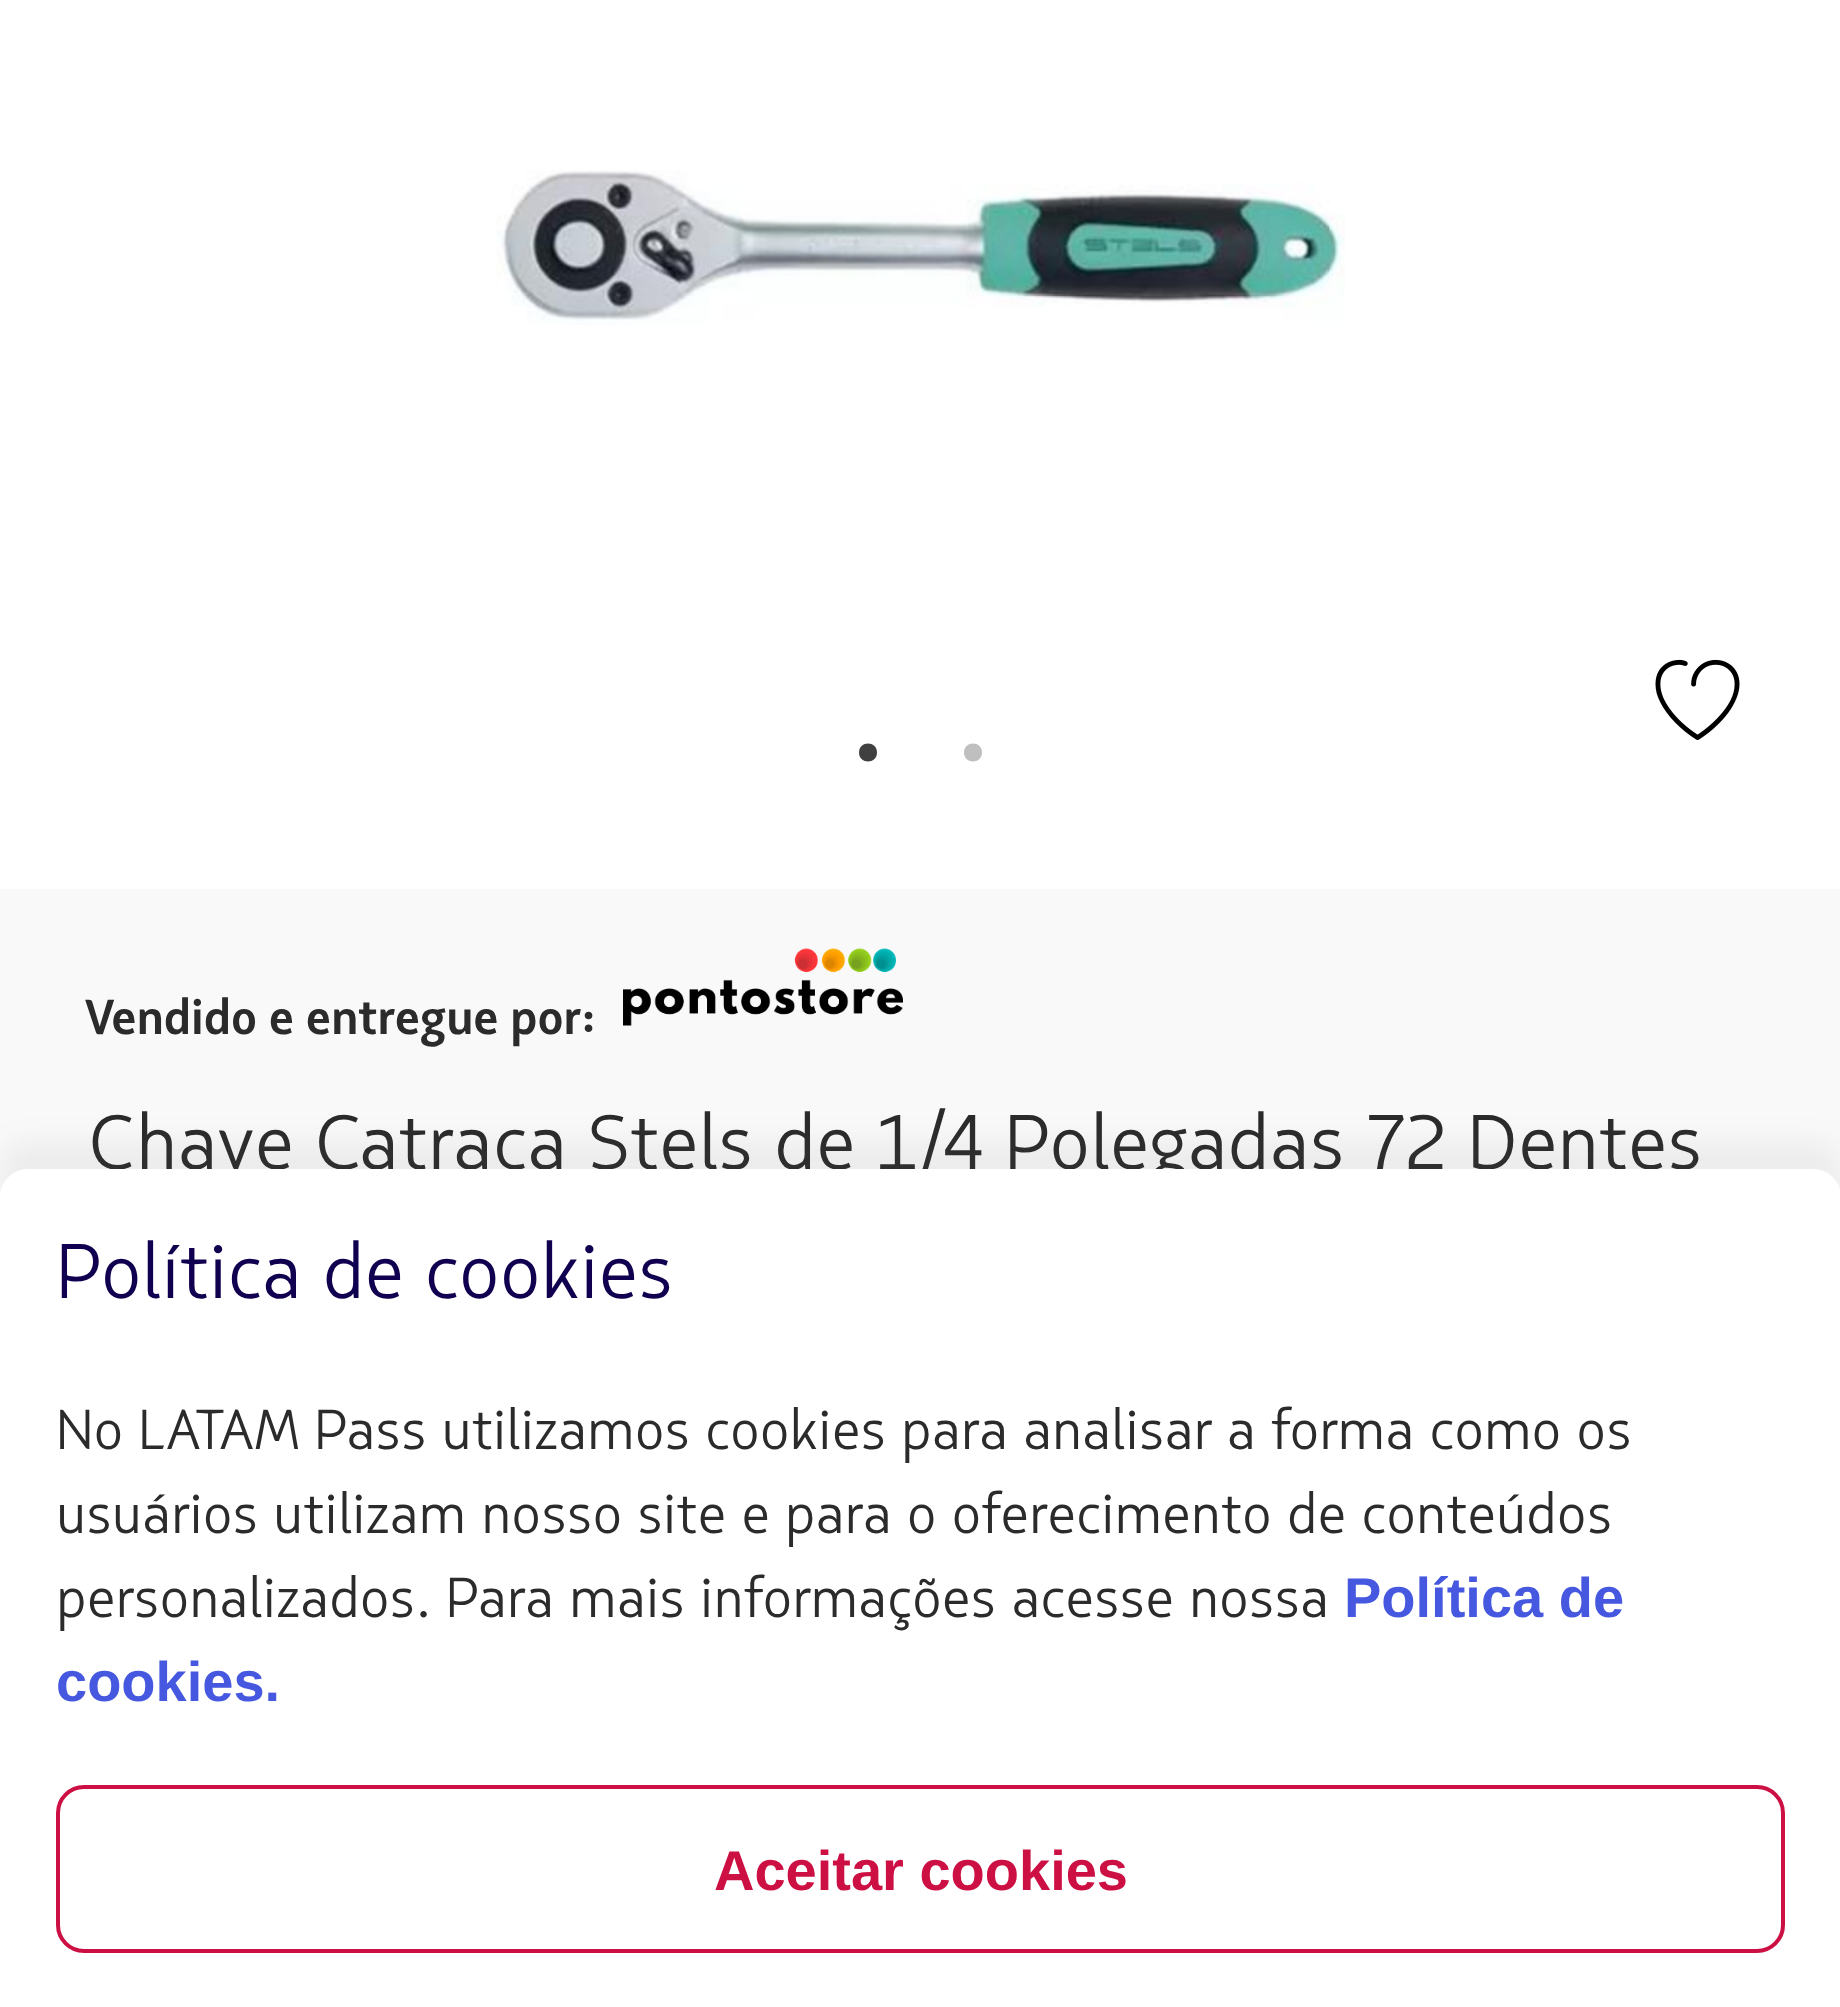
(async () => {
    const canvas = document.querySelector("canvas");
    canvas.width = 1840;
    canvas.height = 2007;
    const context = canvas.getContext("2d");
    context.miterLimit = 4;
    context.fontKerning = "normal";
    function write(s, x, y, font, color) {
        context.font = font;
        context.fillStyle = color;
        context.fillText(s, x, y);
    }
    function block(x, y, w, h, color) {
        context.fillStyle = color;
        context.fillRect(x, y, w, h);
    }
    async function photo(src, x, y, w, h) {
        const img = new Image();
        img.src = src;
        await img.decode();
        context.drawImage(img, x, y, w, h);
    }

    block(0, 0, 1840, 2007, "rgb(249, 249, 249)");
    block(0, 0, 1840, 889, "rgb(255, 255, 255)");
    await photo("media/1.png", 496, 170, 849, 155);
    context.fillStyle = "rgb(64, 64, 64)";
    context.beginPath();
    context.moveTo(877, 752.5);
    context.bezierCurveTo(877, 740.5, 859, 740.5, 859, 752.5);
    context.bezierCurveTo(859, 764.5, 877, 764.5, 877, 752.5);
    context.closePath();
    context.fill();
    context.fillStyle = "rgb(191, 191, 191)";
    context.beginPath();
    context.moveTo(982, 752.5);
    context.bezierCurveTo(982, 740.5, 964, 740.5, 964, 752.5);
    context.bezierCurveTo(964, 764.5, 982, 764.5, 982, 752.5);
    context.closePath();
    context.fill();
    await photo("media/2.png", 1655, 659, 85, 81);
    write("Vendido e entregue por:", 84, 1034, "bold 49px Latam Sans", "rgb(43, 43, 43)");
    await photo("media/3.png", 623, 948, 280, 78);
    write("Chave Catraca Stels de 1/4 Polegadas 72 Dentes", 88, 1169, "77px Latam Sans", "rgb(43, 43, 43)");
    context.fillStyle = "rgba(92, 92, 92, 0.08)";
    context.filter = "blur(14px)";
    context.beginPath();
    context.roundRect(0, 1141, 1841, 840, 28);
    context.fill();
    context.filter = "none";
    context.fillStyle = "rgb(255, 255, 255)";
    context.beginPath();
    context.moveTo(28, 1169);
    context.lineTo(1813, 1169);
    context.bezierCurveTo(1828.5, 1169, 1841, 1181.5, 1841, 1197);
    context.lineTo(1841, 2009);
    context.lineTo(0, 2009);
    context.lineTo(0, 1197);
    context.bezierCurveTo(0, 1181.5, 12.5, 1169, 28, 1169);
    context.closePath();
    context.fill();
    write("Política de cookies", 56, 1298, "77px Latam Sans", "rgb(16, 0, 79)");
    write("No LATAM Pass utilizamos cookies para analisar a forma como os", 56, 1449, "56px Latam Sans", "rgb(43, 43, 43)");
    write("usuários utilizam nosso site e para o oferecimento de conteúdos", 56, 1533, "56px Latam Sans", "rgb(43, 43, 43)");
    write("personalizados. Para mais informações acesse nossa", 56, 1617, "56px Latam Sans", "rgb(43, 43, 43)");
    write("Política de", 1344, 1617, "bold 56px Liberation Sans", "rgb(70, 88, 223)");
    write("cookies.", 56, 1701, "bold 56px Liberation Sans", "rgb(70, 88, 223)");
    context.beginPath();
    context.roundRect(58, 1787, 1725, 164, 26);
    context.strokeStyle = "rgb(205, 16, 67)";
    context.lineWidth = 4;
    context.stroke();
    write("Aceitar cookies", 714, 1890, "bold 56px Liberation Sans", "rgb(205, 16, 67)");
})();
